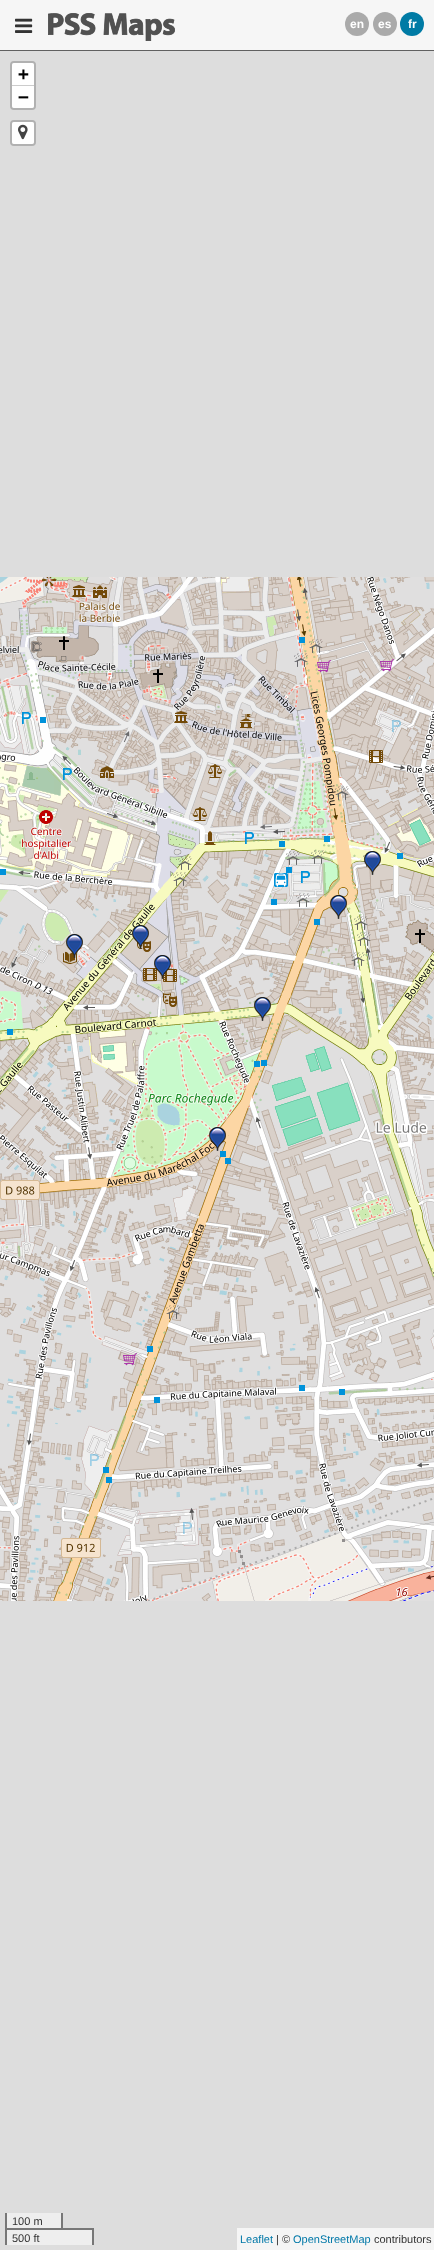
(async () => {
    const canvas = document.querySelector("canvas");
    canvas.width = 434;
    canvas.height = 2250;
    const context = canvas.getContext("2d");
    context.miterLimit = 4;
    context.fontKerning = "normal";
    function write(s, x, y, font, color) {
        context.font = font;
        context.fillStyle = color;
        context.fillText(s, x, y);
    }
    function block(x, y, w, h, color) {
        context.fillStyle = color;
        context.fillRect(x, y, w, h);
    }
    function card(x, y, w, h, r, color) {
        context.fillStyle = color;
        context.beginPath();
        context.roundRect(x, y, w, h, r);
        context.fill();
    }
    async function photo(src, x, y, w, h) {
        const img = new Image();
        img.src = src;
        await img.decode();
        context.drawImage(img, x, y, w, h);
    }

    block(0, 0, 434, 2250, "rgb(246, 246, 246)");
    block(0, 50, 434, 1, "rgb(96, 96, 96)");
    await photo("media/1.png", 15, 18, 18, 15);
    await photo("media/2.png", 48, 13, 127, 28);
    context.fillStyle = "rgb(170, 170, 170)";
    context.beginPath();
    context.arc(357, 24, 12, 0, Math.PI * 2);
    context.fill();
    write("en", 350, 28, "bold 12px Liberation Sans", "rgb(255, 255, 255)");
    context.fillStyle = "rgb(170, 170, 170)";
    context.beginPath();
    context.arc(385, 24, 12, 0, Math.PI * 2);
    context.fill();
    write("es", 378, 28, "bold 12px Liberation Sans", "rgb(255, 255, 255)");
    context.fillStyle = "rgb(0, 123, 165)";
    context.beginPath();
    context.arc(412, 24, 12, 0, Math.PI * 2);
    context.fill();
    write("fr", 408, 28, "bold 12px Liberation Sans", "rgb(255, 255, 255)");
    block(0, 51, 434, 2199, "rgb(221, 221, 221)");
    block(7, 2230, 85, 15, "rgb(238, 238, 238)");
    context.beginPath();
    context.roundRect(11, 62, 24, 47, 3);
    context.strokeStyle = "rgb(177, 177, 177)";
    context.lineWidth = 2;
    context.stroke();
    context.fillStyle = "rgb(255, 255, 255)";
    context.beginPath();
    context.roundRect(12, 63, 22, 23, [2, 2, 0, 0]);
    context.fill();
    block(12, 85, 22, 1, "rgb(204, 204, 204)");
    write("+", 18, 80, "bold 18px DejaVu Sans Mono", "rgb(0, 0, 0)");
    context.fillStyle = "rgb(255, 255, 255)";
    context.beginPath();
    context.roundRect(12, 86, 22, 22, [0, 0, 2, 2]);
    context.fill();
    write("−", 18, 103, "bold 18px DejaVu Sans Mono", "rgb(0, 0, 0)");
    context.beginPath();
    context.roundRect(11, 121, 24, 24, 3);
    context.stroke();
    card(12, 122, 22, 22, 2, "rgb(255, 255, 255)");
    await photo("media/3.png", 18, 124, 10, 16);
    block(7, 2213, 54, 15, "rgb(238, 238, 238)");
    block(61, 2213, 2, 17, "rgb(119, 119, 119)");
    block(5, 2213, 2, 17, "rgb(119, 119, 119)");
    write("100 m", 12, 2225, "11px Liberation Sans", "rgb(51, 51, 51)");
    block(5, 2228, 89, 2, "rgb(119, 119, 119)");
    block(92, 2228, 2, 17, "rgb(119, 119, 119)");
    block(5, 2228, 2, 17, "rgb(119, 119, 119)");
    write("500 ft", 12, 2242, "11px Liberation Sans", "rgb(51, 51, 51)");
    block(237, 2228, 197, 22, "rgb(245, 245, 245)");
    write("Leaflet", 240, 2243, "11px Liberation Sans", "rgb(0, 120, 168)");
    write("| ©", 276, 2243, "11px Liberation Sans", "rgb(51, 51, 51)");
    write("OpenStreetMap", 293, 2243, "11px Liberation Sans", "rgb(0, 120, 168)");
    write("contributors", 374, 2243, "11px Liberation Sans", "rgb(51, 51, 51)");
    await photo("media/4.png", 0, 577, 434, 1024);
    await photo("media/5.png", 364, 851, 17, 24);
    await photo("media/6.png", 330, 895, 17, 24);
    await photo("media/7.png", 66, 934, 17, 24);
    await photo("media/8.png", 132, 925, 17, 24);
    await photo("media/9.png", 154, 955, 17, 24);
    await photo("media/10.png", 254, 997, 17, 24);
    await photo("media/11.png", 209, 1127, 17, 24);
})();
